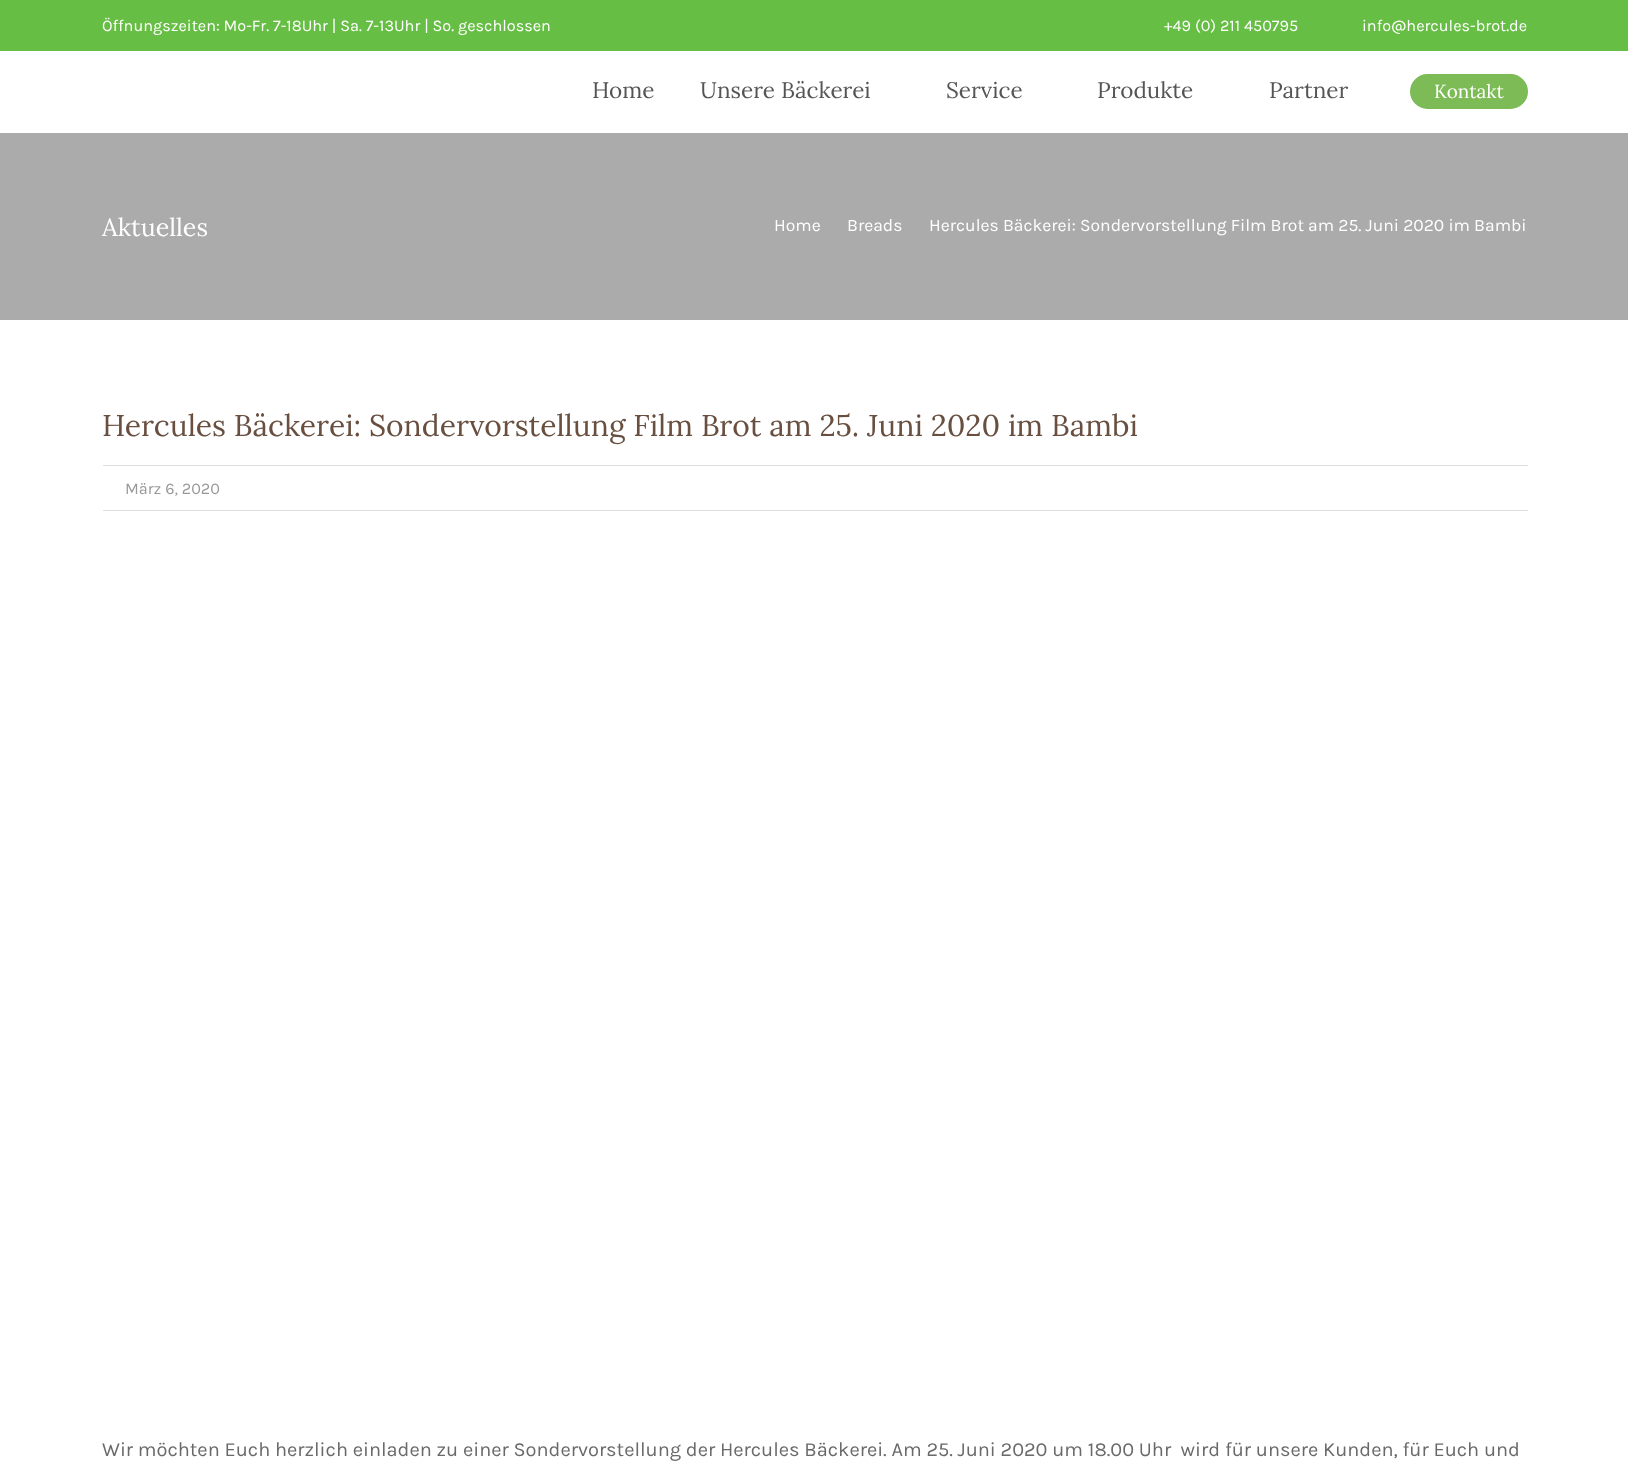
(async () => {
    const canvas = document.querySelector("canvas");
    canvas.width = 1628;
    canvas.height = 1470;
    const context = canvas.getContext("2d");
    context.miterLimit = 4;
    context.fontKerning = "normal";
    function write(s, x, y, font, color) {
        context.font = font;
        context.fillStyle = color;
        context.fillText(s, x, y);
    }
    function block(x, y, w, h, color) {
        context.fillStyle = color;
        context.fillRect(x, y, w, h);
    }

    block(0, 0, 1628, 1470, "rgb(255, 255, 255)");
    block(0, 0, 1628, 51, "rgb(103, 190, 68)");
    write("Öffnungszeiten: Mo-Fr. 7-18Uhr | Sa. 7-13Uhr | So. geschlossen", 102, 31, "16.25px Karla", "rgb(255, 255, 255)");
    write("+49 (0) 211 450795", 1164, 31, "16.25px Karla", "rgb(255, 255, 255)");
    write("info@hercules-brot.de", 1362, 31, "16.25px Karla", "rgb(255, 255, 255)");
    write("Home", 592, 98, "22.5px Lora", "rgb(85, 85, 85)");
    write("Unsere Bäckerei", 700, 98, "22.5px Lora", "rgb(85, 85, 85)");
    write("Service", 946, 98, "22.5px Lora", "rgb(85, 85, 85)");
    write("Produkte", 1097, 98, "22.5px Lora", "rgb(85, 85, 85)");
    write("Partner", 1269, 98, "22.5px Lora", "rgb(85, 85, 85)");
    context.fillStyle = "rgb(125, 187, 86)";
    context.beginPath();
    context.roundRect(1411.5, 75.5, 115, 32, 16);
    context.fill();
    context.strokeStyle = "rgb(125, 187, 86)";
    context.lineWidth = 3;
    context.stroke();
    write("Kontakt", 1434, 98, "19px Lora", "rgb(255, 255, 255)");
    block(0, 133, 1628, 187, "rgb(171, 171, 171)");
    write("Aktuelles", 102, 236, "25px Lora", "rgb(255, 255, 255)");
    write("Home", 774, 231, "17.5px Karla", "rgb(255, 255, 255)");
    write("Breads", 847, 231, "17.5px Karla", "rgb(255, 255, 255)");
    write("Hercules Bäckerei: Sondervorstellung Film Brot am 25. Juni 2020 im Bambi", 929, 231, "17.5px Karla", "rgb(255, 255, 255)");
    write("Hercules Bäckerei: Sondervorstellung Film Brot am 25. Juni 2020 im Bambi", 102, 436, "30px Lora", "rgb(104, 79, 64)");
    block(103, 465, 1425, 1, "rgb(221, 221, 221)");
    block(103, 510, 1425, 1, "rgb(221, 221, 221)");
    write("März 6, 2020", 125, 494, "16.25px Karla", "rgb(153, 153, 153)");
    write("Wir möchten Euch herzlich einladen zu einer Sondervorstellung der Hercules Bäckerei. Am 25. Juni 2020 um 18.00 Uhr  wird für unsere Kunden, für Euch und", 102, 1456, "20px Karla", "rgb(105, 105, 105)");
})();
